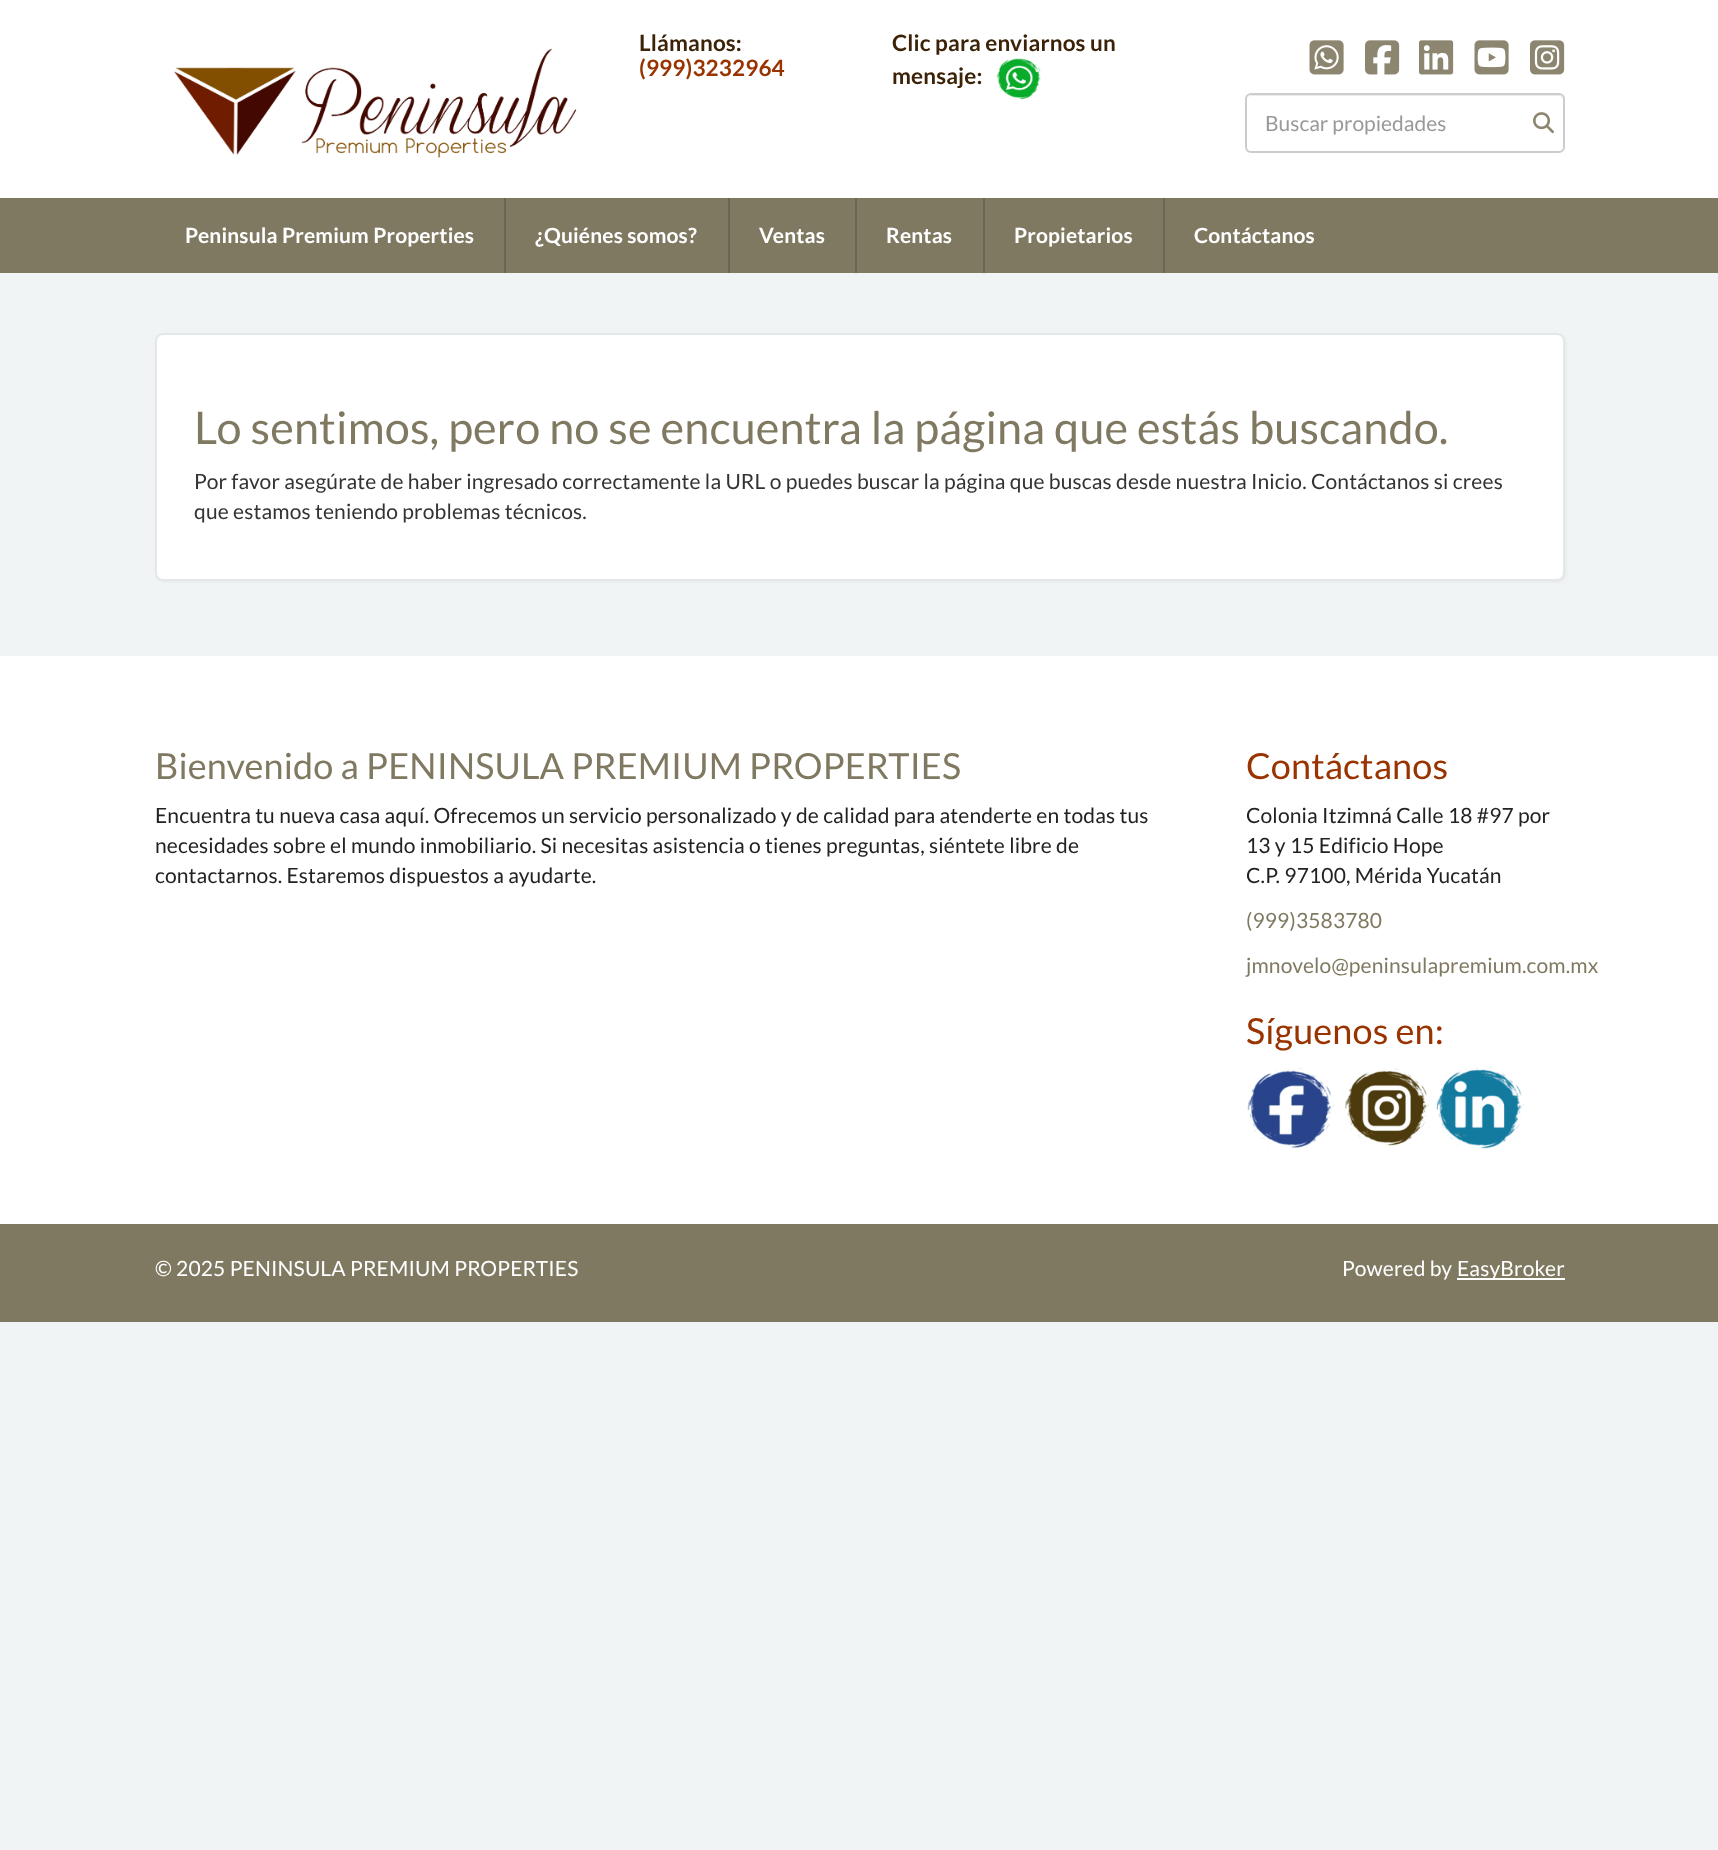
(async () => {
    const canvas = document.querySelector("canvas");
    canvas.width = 1718;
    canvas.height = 1850;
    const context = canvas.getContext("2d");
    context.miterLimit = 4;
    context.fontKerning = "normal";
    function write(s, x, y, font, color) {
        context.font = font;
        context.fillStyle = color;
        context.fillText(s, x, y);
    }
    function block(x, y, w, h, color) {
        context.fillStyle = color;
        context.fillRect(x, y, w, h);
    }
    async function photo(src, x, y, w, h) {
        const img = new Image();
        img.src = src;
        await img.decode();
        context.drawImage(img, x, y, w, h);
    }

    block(0, 0, 1718, 1850, "rgb(241, 244, 245)");
    block(0, 0, 1718, 198, "rgb(255, 255, 255)");
    await photo("media/1.png", 174, 48, 403, 110);
    context.letterSpacing = "0.15px";
    write("Llámanos:", 639, 51, "bold 22.5px Lato", "rgb(60, 34, 6)");
    write("(999)3232964", 639, 76, "bold 22.5px Lato", "rgb(153, 51, 0)");
    write("Clic para enviarnos un", 892, 51, "bold 22.5px Lato", "rgb(60, 34, 6)");
    write("mensaje:", 892, 84, "bold 22.5px Lato", "rgb(60, 34, 6)");
    await photo("media/2.png", 996, 57, 45, 43);
    await photo("media/3.png", 1309, 40, 35, 35);
    await photo("media/4.png", 1365, 40, 35, 35);
    await photo("media/5.png", 1419, 40, 35, 35);
    await photo("media/6.png", 1474, 40, 35, 35);
    await photo("media/7.png", 1530, 40, 35, 35);
    context.fillStyle = "rgb(236, 236, 236)";
    context.beginPath();
    context.moveTo(1251, 96);
    context.lineTo(1558, 96);
    context.bezierCurveTo(1561, 96, 1563, 98, 1563, 100);
    context.bezierCurveTo(1563, 97, 1561, 95, 1558, 95);
    context.lineTo(1252, 95);
    context.bezierCurveTo(1250, 95, 1249, 96, 1248, 97);
    context.closePath();
    context.fill();
    context.beginPath();
    context.roundRect(1246, 94, 318, 58, 5);
    context.strokeStyle = "rgb(204, 204, 204)";
    context.lineWidth = 2;
    context.stroke();
    context.letterSpacing = "0px";
    write("Buscar propiedades", 1265, 131, "21px Lato", "rgb(153, 153, 153)");
    await photo("media/8.png", 1533, 112, 21, 22);
    block(0, 198, 1718, 75, "rgb(128, 121, 97)");
    block(504, 198, 2, 75, "rgb(109, 103, 82)");
    context.letterSpacing = "0.15px";
    write("Peninsula Premium Properties", 185, 243, "bold 21px Lato", "rgb(255, 255, 255)");
    block(728, 198, 2, 75, "rgb(109, 103, 82)");
    write("¿Quiénes somos?", 535, 243, "bold 21px Lato", "rgb(255, 255, 255)");
    block(855, 198, 2, 75, "rgb(109, 103, 82)");
    write("Ventas", 759, 243, "bold 21px Lato", "rgb(255, 255, 255)");
    block(983, 198, 2, 75, "rgb(109, 103, 82)");
    write("Rentas", 886, 243, "bold 21px Lato", "rgb(255, 255, 255)");
    block(1163, 198, 2, 75, "rgb(109, 103, 82)");
    write("Propietarios", 1014, 243, "bold 21px Lato", "rgb(255, 255, 255)");
    write("Contáctanos", 1194, 243, "bold 21px Lato", "rgb(255, 255, 255)");
    context.fillStyle = "rgba(0, 0, 0, 0.05)";
    context.filter = "blur(1.5px)";
    context.beginPath();
    context.roundRect(156, 335, 1410, 247, 8);
    context.fill();
    context.filter = "none";
    context.fillStyle = "rgb(255, 255, 255)";
    context.beginPath();
    context.roundRect(156, 334, 1408, 246, 7);
    context.fill();
    context.strokeStyle = "rgb(228, 232, 235)";
    context.stroke();
    write("Lo sentimos, pero no se encuentra la página que estás buscando.", 194, 444, "45px Lato", "rgb(128, 121, 97)");
    write("Por favor asegúrate de haber ingresado correctamente la URL o puedes buscar la página que buscas desde nuestra Inicio. Contáctanos si crees", 194, 489, "21px Lato", "rgb(51, 51, 51)");
    write("que estamos teniendo problemas técnicos.", 194, 519, "21px Lato", "rgb(51, 51, 51)");
    block(0, 656, 1718, 568, "rgb(255, 255, 255)");
    write("Bienvenido a PENINSULA PREMIUM PROPERTIES", 155, 779, "36px Lato", "rgb(128, 121, 97)");
    write("Encuentra tu nueva casa aquí. Ofrecemos un servicio personalizado y de calidad para atenderte en todas tus", 155, 823, "21px Lato", "rgb(34, 34, 34)");
    write("necesidades sobre el mundo inmobiliario. Si necesitas asistencia o tienes preguntas, siéntete libre de", 155, 853, "21px Lato", "rgb(34, 34, 34)");
    write("contactarnos. Estaremos dispuestos a ayudarte.", 155, 883, "21px Lato", "rgb(34, 34, 34)");
    write("Contáctanos", 1246, 779, "36px Lato", "rgb(153, 51, 0)");
    write("Colonia Itzimná Calle 18 #97 por", 1246, 823, "21px Lato", "rgb(34, 34, 34)");
    write("13 y 15 Edificio Hope", 1246, 853, "21px Lato", "rgb(34, 34, 34)");
    write("C.P. 97100, Mérida Yucatán", 1246, 883, "21px Lato", "rgb(34, 34, 34)");
    write("(999)3583780", 1246, 928, "21px Lato", "rgb(128, 121, 97)");
    write("jmnovelo@peninsulapremium.com.mx", 1246, 973, "21px Lato", "rgb(128, 121, 97)");
    write("Síguenos en:", 1246, 1044, "36px Lato", "rgb(153, 51, 0)");
    await photo("media/9.png", 1247, 1068, 88, 80);
    await photo("media/10.png", 1345, 1068, 85, 78);
    await photo("media/11.png", 1436, 1066, 88, 83);
    block(0, 1224, 1718, 98, "rgb(128, 121, 97)");
    write("© 2025 PENINSULA PREMIUM PROPERTIES", 155, 1276, "21px Lato", "rgb(255, 255, 255)");
    write("Powered by", 1342, 1276, "21px Lato", "rgb(255, 255, 255)");
    block(1457, 1278, 108, 2, "rgb(255, 255, 255)");
    write("EasyBroker", 1457, 1276, "21px Lato", "rgb(255, 255, 255)");
})();
